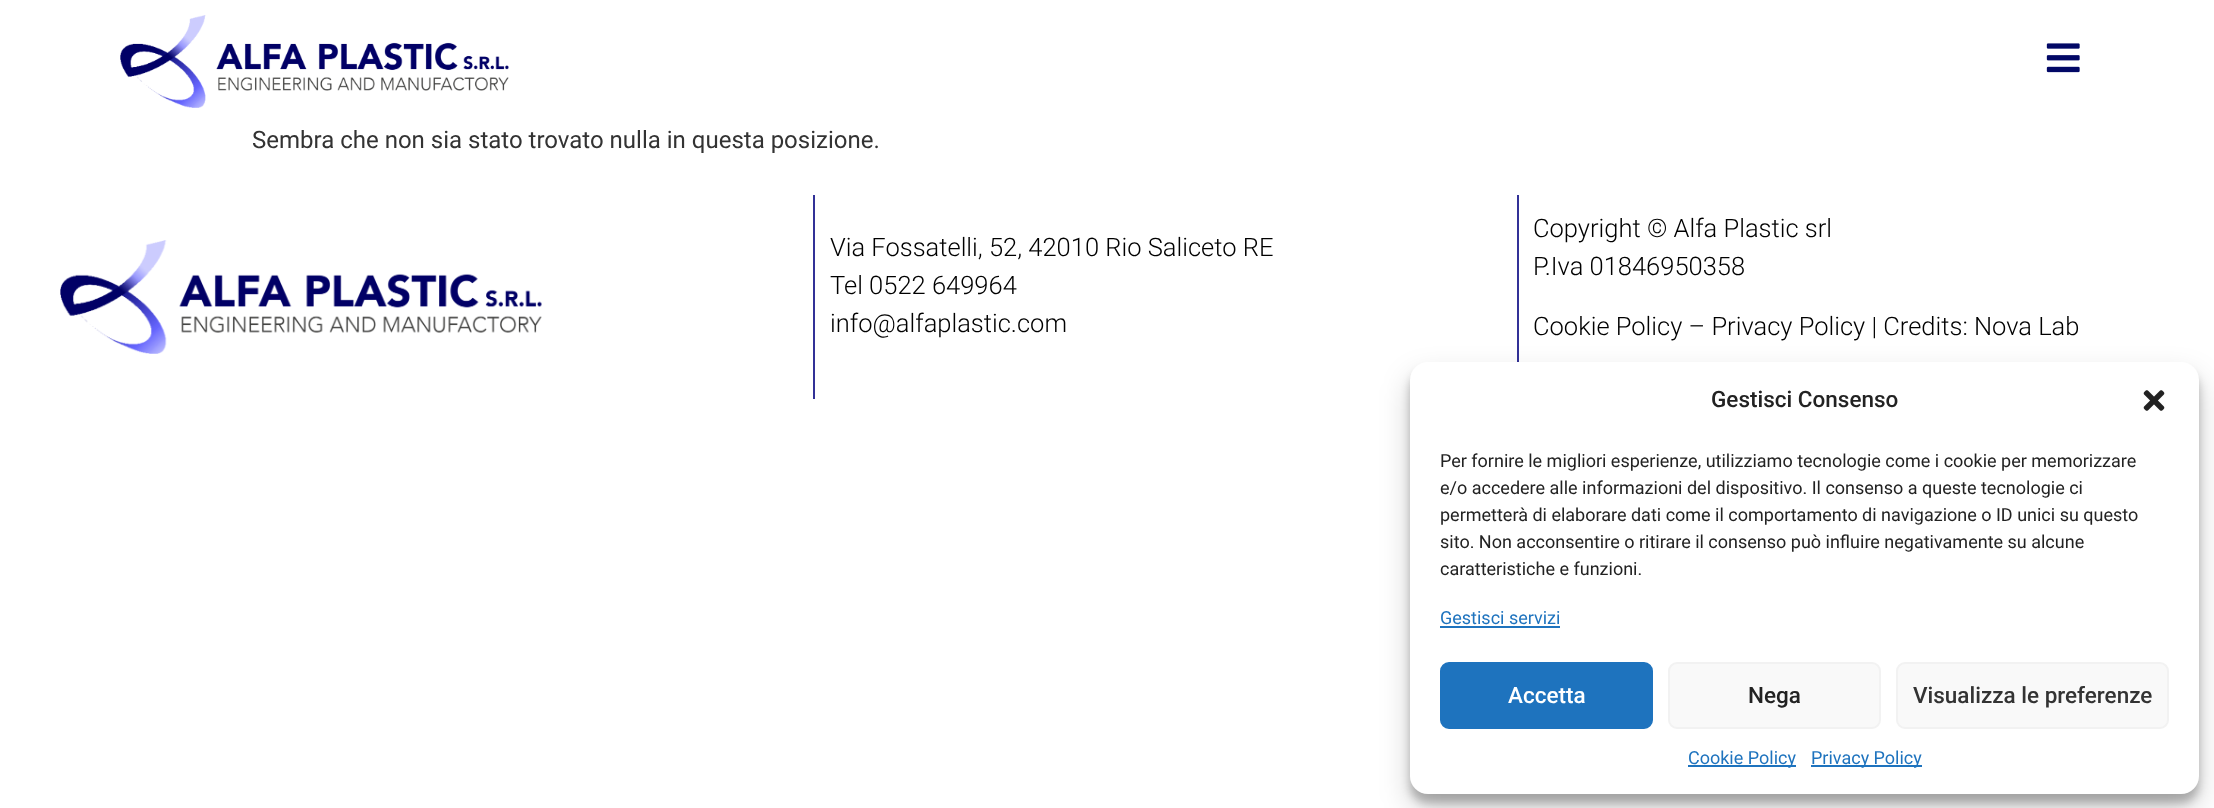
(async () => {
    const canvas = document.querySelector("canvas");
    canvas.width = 2214;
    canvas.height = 808;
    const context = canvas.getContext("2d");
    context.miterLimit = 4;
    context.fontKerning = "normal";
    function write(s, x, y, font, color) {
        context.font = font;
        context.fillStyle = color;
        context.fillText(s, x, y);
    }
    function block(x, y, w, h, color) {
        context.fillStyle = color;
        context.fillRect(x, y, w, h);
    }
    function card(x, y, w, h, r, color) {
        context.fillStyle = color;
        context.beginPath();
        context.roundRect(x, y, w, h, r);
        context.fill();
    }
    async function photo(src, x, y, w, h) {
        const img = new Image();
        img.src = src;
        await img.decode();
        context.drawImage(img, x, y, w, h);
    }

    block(0, 0, 2214, 808, "rgb(255, 255, 255)");
    await photo("media/1.png", 120, 15, 389, 93);
    await photo("media/2.png", 2046, 43, 34, 30);
    write("Sembra che non sia stato trovato nulla in questa posizione.", 252, 148, "24px Roboto", "rgb(51, 51, 51)");
    await photo("media/3.png", 60, 240, 482, 114);
    block(813, 195, 2, 204, "rgb(50, 49, 151)");
    write("Via Fossatelli, 52, 42010 Rio Saliceto RE", 830, 256, "300 25.5px Roboto", "rgb(0, 0, 0)");
    write("Tel 0522 649964", 830, 294, "300 25.5px Roboto", "rgb(0, 0, 0)");
    write("info@alfaplastic.com", 830, 332, "300 25.5px Roboto", "rgb(0, 0, 0)");
    block(1517, 195, 2, 167, "rgb(50, 49, 151)");
    write("Copyright © Alfa Plastic srl", 1533, 237, "300 25.5px Roboto", "rgb(0, 0, 0)");
    write("P.Iva 01846950358", 1533, 275, "300 25.5px Roboto", "rgb(0, 0, 0)");
    write("Cookie Policy – Privacy Policy | Credits: Nova Lab", 1533, 335, "300 25.5px Roboto", "rgb(0, 0, 0)");
    context.fillStyle = "rgba(0, 0, 0, 0.23)";
    context.filter = "blur(4.5px)";
    context.beginPath();
    context.roundRect(1410, 371, 789, 432, 18);
    context.fill();
    context.filter = "none";
    context.fillStyle = "rgba(0, 0, 0, 0.19)";
    context.filter = "blur(15px)";
    context.beginPath();
    context.roundRect(1410, 377, 789, 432, 18);
    context.fill();
    context.filter = "none";
    card(1410, 362, 789, 432, 18, "rgb(255, 255, 255)");
    write("Gestisci Consenso", 1711, 407, "500 22.5px Roboto", "rgb(34, 34, 34)");
    await photo("media/4.png", 2143, 390, 22, 21);
    write("Per fornire le migliori esperienze, utilizziamo tecnologie come i cookie per memorizzare", 1440, 467, "18px Roboto", "rgb(34, 34, 34)");
    write("e/o accedere alle informazioni del dispositivo. Il consenso a queste tecnologie ci", 1440, 494, "18px Roboto", "rgb(34, 34, 34)");
    write("permetterà di elaborare dati come il comportamento di navigazione o ID unici su questo", 1440, 521, "18px Roboto", "rgb(34, 34, 34)");
    write("sito. Non acconsentire o ritirare il consenso può influire negativamente su alcune", 1440, 548, "18px Roboto", "rgb(34, 34, 34)");
    write("caratteristiche e funzioni.", 1440, 575, "18px Roboto", "rgb(34, 34, 34)");
    write("Gestisci servizi", 1440, 624, "18px Roboto", "rgb(30, 115, 190)");
    block(1440, 626, 120, 2, "rgb(30, 115, 190)");
    context.beginPath();
    context.roundRect(1441, 663, 211, 65, 8);
    context.fill();
    context.strokeStyle = "rgb(30, 115, 190)";
    context.lineWidth = 2;
    context.stroke();
    write("Accetta", 1508, 703, "500 22.5px Roboto", "rgb(255, 255, 255)");
    context.fillStyle = "rgb(249, 249, 249)";
    context.beginPath();
    context.roundRect(1669, 663, 211, 65, 8);
    context.fill();
    context.strokeStyle = "rgb(242, 242, 242)";
    context.stroke();
    write("Nega", 1748, 703, "500 22.5px Roboto", "rgb(34, 34, 34)");
    context.fillStyle = "rgb(249, 249, 249)";
    context.beginPath();
    context.roundRect(1897, 663, 271, 65, 8);
    context.fill();
    context.stroke();
    write("Visualizza le preferenze", 1913, 703, "500 22.5px Roboto", "rgb(51, 51, 51)");
    block(1688, 765, 108, 2, "rgb(30, 115, 190)");
    write("Cookie Policy", 1688, 764, "18px Roboto", "rgb(30, 115, 190)");
    block(1811, 765, 111, 2, "rgb(30, 115, 190)");
    write("Privacy Policy", 1811, 764, "18px Roboto", "rgb(30, 115, 190)");
})();
